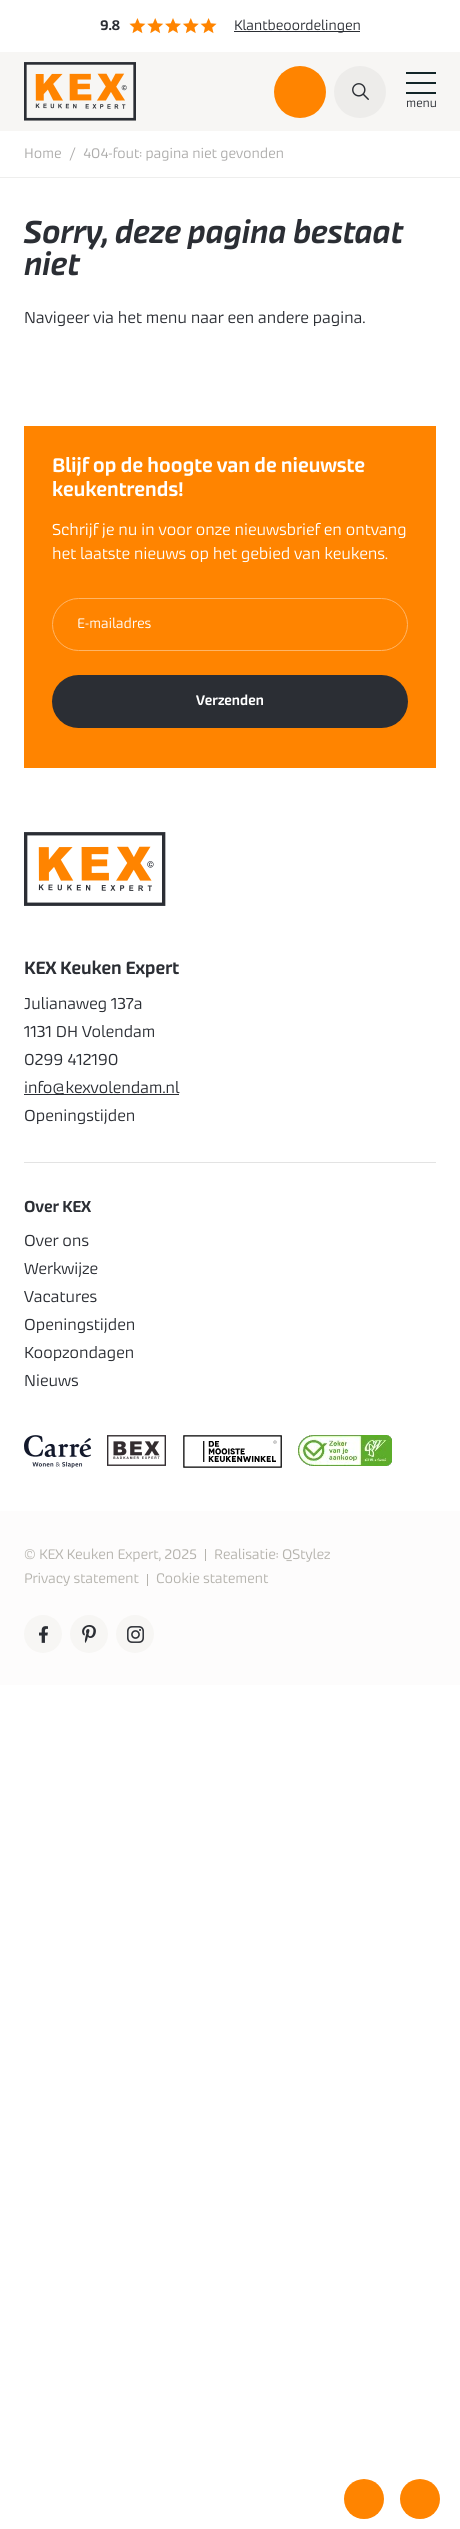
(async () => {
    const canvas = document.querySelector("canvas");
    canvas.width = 460;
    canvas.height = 2529;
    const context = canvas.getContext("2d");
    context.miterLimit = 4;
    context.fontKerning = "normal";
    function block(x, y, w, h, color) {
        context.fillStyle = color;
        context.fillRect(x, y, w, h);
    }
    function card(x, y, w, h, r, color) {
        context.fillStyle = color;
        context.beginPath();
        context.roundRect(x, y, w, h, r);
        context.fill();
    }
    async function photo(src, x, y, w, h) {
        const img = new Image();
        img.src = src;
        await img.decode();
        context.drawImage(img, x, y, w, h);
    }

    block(0, 0, 460, 2529, "rgb(255, 255, 255)");
    await photo("media/1.png", 100, 20, 20, 11);
    await photo("media/2.png", 129, 18, 88, 16);
    block(234, 31, 126, 1, "rgb(43, 46, 52)");
    await photo("media/3.png", 235, 19, 125, 14);
    block(0, 52, 460, 79, "rgb(247, 246, 244)");
    await photo("media/4.png", 24, 62, 112, 59);
    context.fillStyle = "rgb(255, 132, 0)";
    context.beginPath();
    context.arc(300, 92, 26, 0, Math.PI * 2);
    context.fill();
    context.fillStyle = "rgb(237, 236, 234)";
    context.beginPath();
    context.arc(360, 92, 26, 0, Math.PI * 2);
    context.fill();
    await photo("media/5.png", 352, 83, 17, 17);
    block(406, 72, 30, 2, "rgb(19, 38, 40)");
    block(406, 82, 30, 2, "rgb(19, 38, 40)");
    block(406, 92, 30, 2, "rgb(19, 38, 40)");
    await photo("media/6.png", 407, 100, 29, 8);
    block(0, 177, 460, 1, "rgb(238, 238, 237)");
    await photo("media/7.png", 25, 148, 36, 11);
    context.fillStyle = "rgb(173, 172, 171)";
    context.beginPath();
    context.moveTo(69.5, 160.5);
    context.lineTo(74.5, 147.5);
    context.lineTo(75.5, 147.5);
    context.lineTo(70.5, 160.5);
    context.closePath();
    context.fill();
    await photo("media/8.png", 83, 147, 200, 14);
    await photo("media/9.png", 23, 219, 381, 31);
    await photo("media/10.png", 24, 251, 57, 25);
    await photo("media/11.png", 25, 311, 340, 16);
    context.fillStyle = "rgb(255, 132, 0)";
    context.beginPath();
    context.arc(364, 2499, 20, 0, Math.PI * 2);
    context.fill();
    context.beginPath();
    context.arc(420, 2499, 20, 0, Math.PI * 2);
    context.fill();
    block(24, 426, 412, 342, "rgb(255, 132, 0)");
    await photo("media/12.png", 53, 456, 312, 20);
    await photo("media/13.png", 53, 481, 130, 16);
    await photo("media/14.png", 52, 522, 354, 17);
    await photo("media/15.png", 53, 547, 335, 16);
    context.beginPath();
    context.roundRect(52.5, 598.5, 355, 52, 26);
    context.strokeStyle = "rgb(255, 181, 102)";
    context.stroke();
    await photo("media/16.png", 78, 617, 73, 12);
    card(52, 675, 356, 53, 26.5, "rgb(43, 46, 52)");
    await photo("media/17.png", 196, 694, 67, 12);
    await photo("media/18.png", 24, 832, 142, 74);
    await photo("media/19.png", 25, 960, 154, 18);
    await photo("media/20.png", 24, 997, 118, 16);
    await photo("media/21.png", 24, 1025, 130, 13);
    await photo("media/22.png", 25, 1053, 93, 13);
    await photo("media/23.png", 25, 1080, 155, 14);
    block(24, 1094, 155, 1, "rgb(43, 46, 52)");
    await photo("media/24.png", 25, 1109, 109, 16);
    block(24, 1162, 412, 1, "rgb(227, 227, 227)");
    await photo("media/25.png", 24, 1200, 67, 13);
    await photo("media/26.png", 25, 1234, 64, 13);
    await photo("media/27.png", 24, 1262, 74, 16);
    await photo("media/28.png", 24, 1291, 73, 12);
    await photo("media/24.png", 25, 1318, 109, 16);
    await photo("media/29.png", 25, 1346, 108, 16);
    await photo("media/30.png", 25, 1374, 53, 13);
    await photo("media/31.png", 24, 1435, 67, 33);
    await photo("media/32.png", 107, 1435, 59, 31);
    await photo("media/33.png", 183, 1435, 99, 33);
    await photo("media/34.png", 298, 1435, 94, 31);
    block(0, 1511, 460, 174, "rgb(253, 252, 252)");
    await photo("media/35.png", 24, 1548, 173, 14);
    block(205, 1549, 1, 12, "rgb(181, 179, 173)");
    await photo("media/36.png", 215, 1548, 63, 12);
    await photo("media/37.png", 282, 1548, 48, 14);
    await photo("media/38.png", 25, 1572, 114, 14);
    block(147, 1574, 1, 12, "rgb(181, 179, 173)");
    await photo("media/39.png", 156, 1572, 113, 12);
    context.fillStyle = "rgb(247, 246, 244)";
    context.beginPath();
    context.arc(43, 1634, 19, 0, Math.PI * 2);
    context.fill();
    await photo("media/40.png", 39, 1626, 9, 17);
    context.beginPath();
    context.arc(89, 1634, 19, 0, Math.PI * 2);
    context.fill();
    await photo("media/41.png", 82, 1625, 14, 18);
    context.beginPath();
    context.arc(135, 1634, 19, 0, Math.PI * 2);
    context.fill();
    await photo("media/42.png", 127, 1626, 17, 17);
})();
